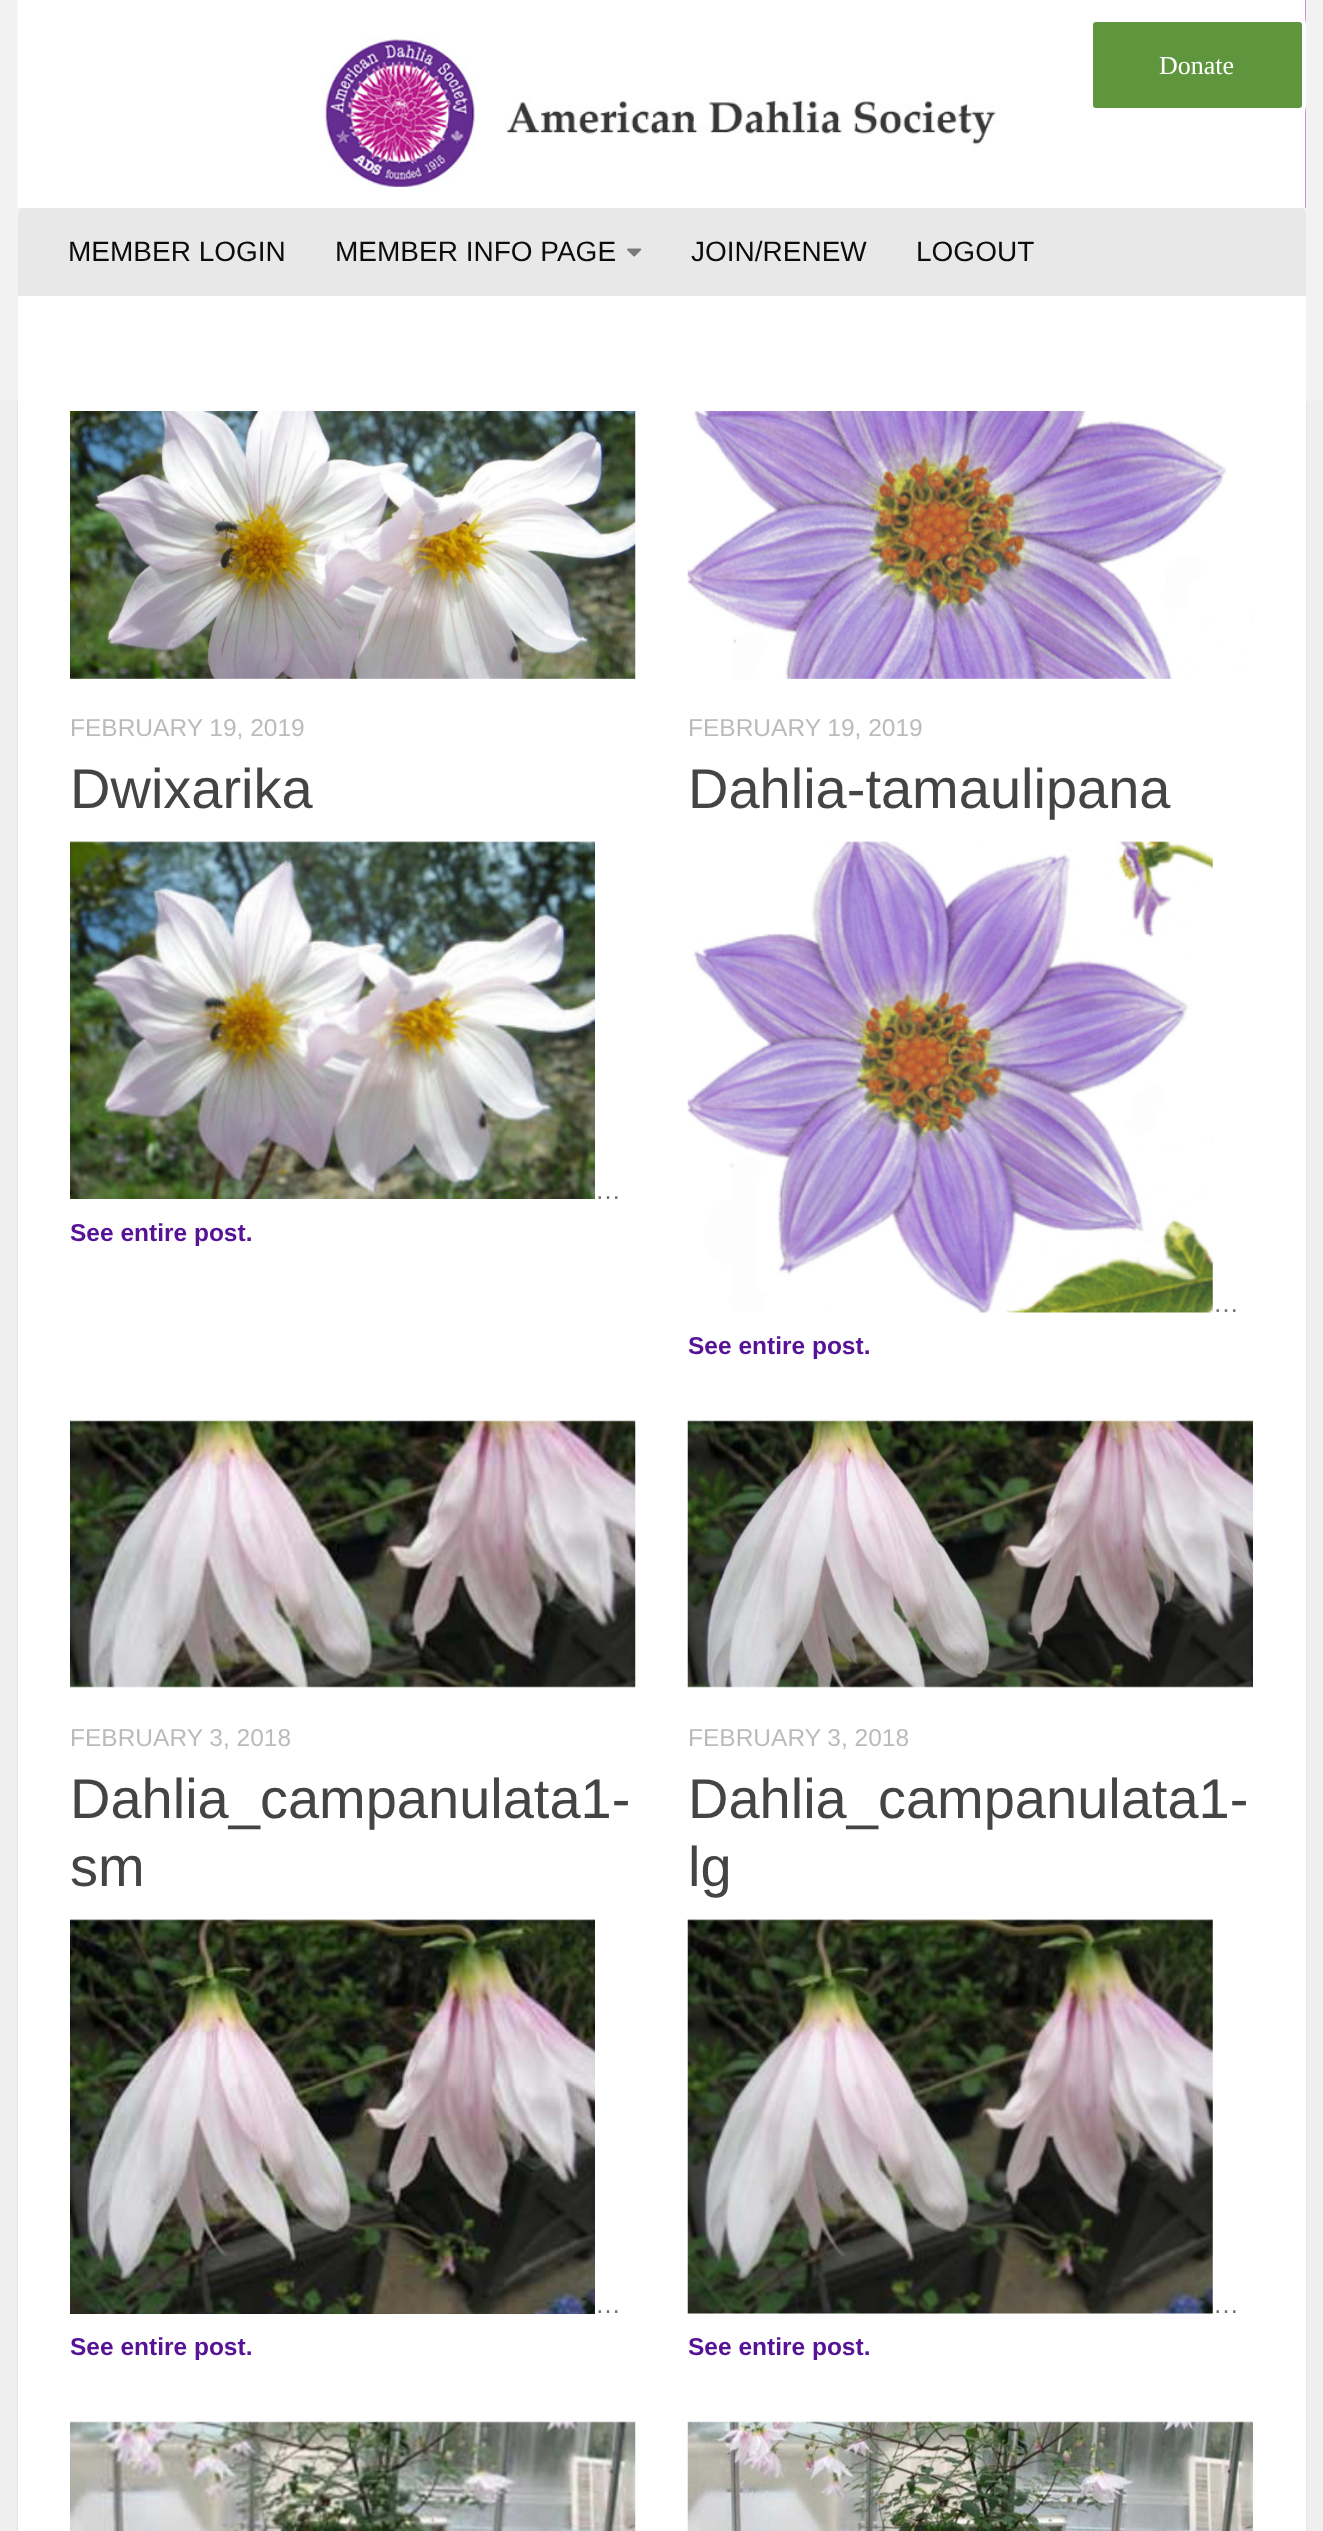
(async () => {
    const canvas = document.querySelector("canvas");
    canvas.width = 1323;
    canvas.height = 2531;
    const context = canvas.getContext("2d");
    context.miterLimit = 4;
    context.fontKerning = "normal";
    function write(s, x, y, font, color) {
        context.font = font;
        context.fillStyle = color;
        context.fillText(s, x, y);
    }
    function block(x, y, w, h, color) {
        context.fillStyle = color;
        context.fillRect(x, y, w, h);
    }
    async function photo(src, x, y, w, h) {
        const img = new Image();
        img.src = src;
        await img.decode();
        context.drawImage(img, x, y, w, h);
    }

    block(0, 0, 1323, 2531, "rgb(239, 239, 239)");
    context.fillStyle = "rgba(0, 0, 0, 0.1)";
    context.filter = "blur(1px)";
    context.beginPath();
    context.rect(18, 298, 1288, 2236);
    context.fill();
    context.filter = "none";
    block(0, 0, 1323, 401, "rgb(242, 242, 242)");
    block(1305, 0, 1, 208, "rgb(189, 24, 134)");
    await photo("media/1.png", 17, 0, 1289, 208);
    context.save();
    context.beginPath();
    context.rect(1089, 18, 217, 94);
    context.clip();
    context.fillStyle = "rgb(255, 255, 255)";
    context.filter = "blur(2px)";
    context.beginPath();
    context.roundRect(1089, 18, 217, 94, 7);
    context.fill();
    context.filter = "none";
    context.restore();
    context.fillStyle = "rgb(95, 150, 61)";
    context.beginPath();
    context.roundRect(1091, 20, 213, 90, 5);
    context.fill();
    context.strokeStyle = "rgb(255, 255, 255)";
    context.lineWidth = 4;
    context.stroke();
    write("Donate", 1159, 74, "26px Liberation Serif", "rgb(255, 255, 255)");
    context.fillStyle = "rgb(232, 232, 232)";
    context.beginPath();
    context.roundRect(18, 208, 1288, 88, [5, 5, 0, 0]);
    context.fill();
    write("MEMBER LOGIN", 68, 261, "28px Liberation Sans", "rgb(13, 12, 12)");
    write("MEMBER INFO PAGE", 335, 261, "28px Liberation Sans", "rgb(13, 12, 12)");
    await photo("media/2.png", 627, 248, 15, 9);
    write("JOIN/RENEW", 691, 261, "28px Liberation Sans", "rgb(13, 12, 12)");
    write("LOGOUT", 916, 261, "28px Liberation Sans", "rgb(13, 12, 12)");
    block(18, 296, 1288, 2235, "rgb(255, 255, 255)");
    await photo("media/3.png", 70, 411, 566, 268);
    write("FEBRUARY 19, 2019", 70, 736, "24.5px Liberation Sans", "rgb(187, 187, 187)");
    write("Dwixarika", 70, 808, "56px Liberation Sans", "rgb(68, 68, 68)");
    await photo("media/4.png", 70, 841, 525, 358);
    write("…", 595, 1199, "26px Liberation Sans", "rgb(118, 118, 118)");
    write("See entire post.", 70, 1241, "bold 24.5px Liberation Sans", "rgb(86, 19, 150)");
    await photo("media/5.png", 687, 411, 566, 268);
    write("FEBRUARY 19, 2019", 688, 736, "24.5px Liberation Sans", "rgb(187, 187, 187)");
    write("Dahlia-tamaulipana", 688, 808, "56px Liberation Sans", "rgb(68, 68, 68)");
    await photo("media/6.png", 687, 841, 526, 472);
    write("…", 1213, 1312, "26px Liberation Sans", "rgb(118, 118, 118)");
    write("See entire post.", 688, 1354, "bold 24.5px Liberation Sans", "rgb(86, 19, 150)");
    await photo("media/7.png", 70, 1420, 566, 268);
    write("FEBRUARY 3, 2018", 70, 1746, "24.5px Liberation Sans", "rgb(187, 187, 187)");
    write("Dahlia_campanulata1-", 70, 1818, "56px Liberation Sans", "rgb(68, 68, 68)");
    write("sm", 70, 1886, "56px Liberation Sans", "rgb(68, 68, 68)");
    await photo("media/8.png", 70, 1919, 525, 395);
    write("…", 595, 2313, "26px Liberation Sans", "rgb(118, 118, 118)");
    write("See entire post.", 70, 2355, "bold 24.5px Liberation Sans", "rgb(86, 19, 150)");
    await photo("media/9.png", 687, 1420, 566, 268);
    write("FEBRUARY 3, 2018", 688, 1746, "24.5px Liberation Sans", "rgb(187, 187, 187)");
    write("Dahlia_campanulata1-", 688, 1818, "56px Liberation Sans", "rgb(68, 68, 68)");
    write("lg", 688, 1886, "56px Liberation Sans", "rgb(68, 68, 68)");
    await photo("media/10.png", 687, 1919, 526, 395);
    write("…", 1213, 2313, "26px Liberation Sans", "rgb(118, 118, 118)");
    write("See entire post.", 688, 2355, "bold 24.5px Liberation Sans", "rgb(86, 19, 150)");
    await photo("media/11.png", 70, 2421, 566, 110);
    await photo("media/12.png", 687, 2421, 566, 110);
})();
